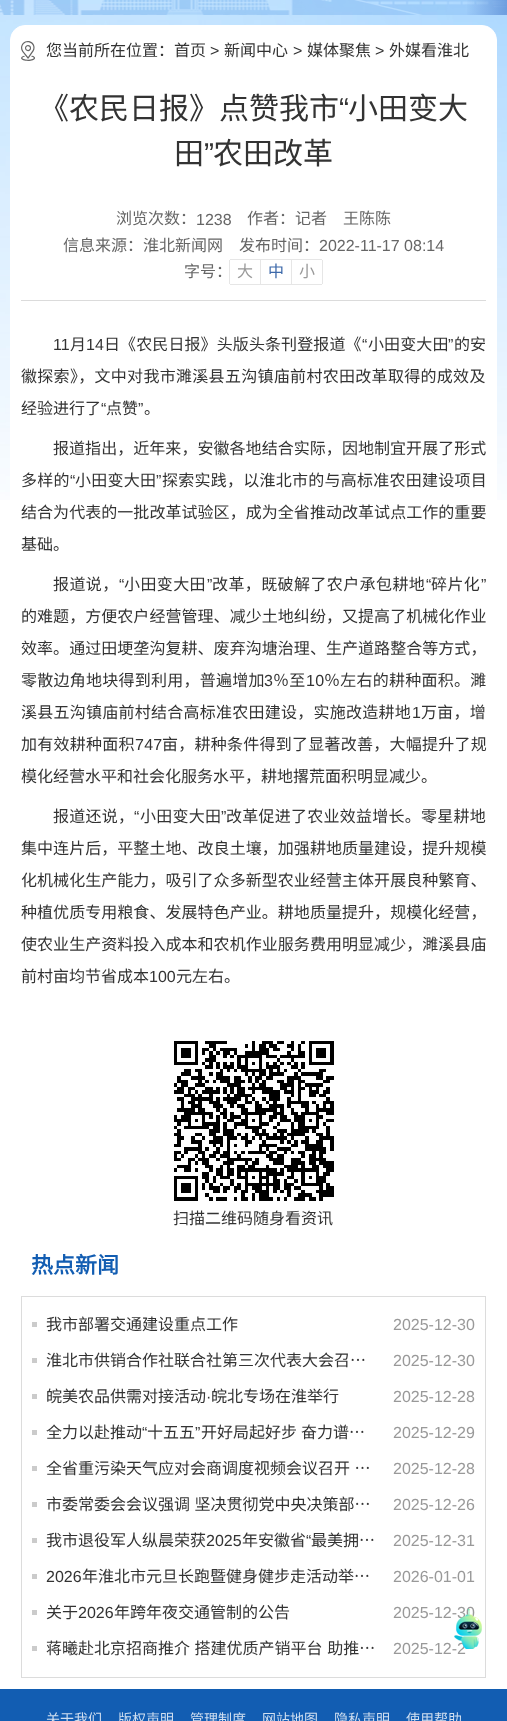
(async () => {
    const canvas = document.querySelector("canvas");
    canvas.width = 507;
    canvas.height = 1721;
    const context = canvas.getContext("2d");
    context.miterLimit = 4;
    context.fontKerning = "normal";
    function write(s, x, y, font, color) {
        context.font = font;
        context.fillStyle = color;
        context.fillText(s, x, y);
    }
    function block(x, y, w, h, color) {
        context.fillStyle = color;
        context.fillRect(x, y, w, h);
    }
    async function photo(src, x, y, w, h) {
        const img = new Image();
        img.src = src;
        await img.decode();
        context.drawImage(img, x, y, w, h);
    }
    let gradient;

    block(0, 0, 507, 1721, "rgb(255, 255, 255)");
    await photo("media/1.png", 0, 0, 507, 500);
    await photo("media/2.png", 0, 0, 507, 15);
    gradient = context.createLinearGradient(465, -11, 507, -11);
    gradient.addColorStop(0, "rgba(96, 145, 216, 0)");
    gradient.addColorStop(1, "rgba(96, 145, 216, 0.8)");
    context.fillStyle = gradient;
    context.fillRect(467, 0, 40, 15);
    context.fillStyle = "rgb(255, 255, 255)";
    context.beginPath();
    context.roundRect(10.5, 25.5, 486, 1663, [14.5, 14.5, 0, 0]);
    context.fill();
    context.strokeStyle = "rgb(255, 255, 255)";
    context.stroke();
    await photo("media/3.png", 21, 41, 14, 20);
    write("您当前所在位置：首页", 46, 56, "16px Noto Sans CJK SC", "rgb(51, 51, 51)");
    write(">", 210, 56, "16px Liberation Sans", "rgb(51, 51, 51)");
    write("新闻中心", 224, 56, "16px Noto Sans CJK SC", "rgb(51, 51, 51)");
    write(">", 293, 56, "16px Liberation Sans", "rgb(51, 51, 51)");
    write("媒体聚焦", 307, 56, "16px Noto Sans CJK SC", "rgb(51, 51, 51)");
    write(">", 375, 56, "16px Liberation Sans", "rgb(51, 51, 51)");
    write("外媒看淮北", 389, 56, "16px Noto Sans CJK SC", "rgb(51, 51, 51)");
    write("《农民日报》点赞我市", 39, 119, "30px Noto Sans CJK SC", "rgb(51, 51, 51)");
    write("“", 339, 119, "30px Liberation Sans", "rgb(51, 51, 51)");
    write("小田变大", 348, 119, "30px Noto Sans CJK SC", "rgb(51, 51, 51)");
    write("田", 174, 164, "30px Noto Sans CJK SC", "rgb(51, 51, 51)");
    write("”", 204, 164, "30px Liberation Sans", "rgb(51, 51, 51)");
    write("农田改革", 213, 164, "30px Noto Sans CJK SC", "rgb(51, 51, 51)");
    block(21, 300, 465, 1, "rgb(219, 219, 219)");
    write("浏览次数：", 116, 224, "16px Noto Sans CJK SC", "rgb(102, 102, 102)");
    write("1238", 196, 225, "16px Liberation Sans", "rgb(102, 102, 102)");
    write("作者：记者　王陈陈", 247, 224, "16px Noto Sans CJK SC", "rgb(102, 102, 102)");
    write("信息来源：淮北新闻网", 63, 251, "16px Noto Sans CJK SC", "rgb(102, 102, 102)");
    write("发布时间：", 239, 251, "16px Noto Sans CJK SC", "rgb(102, 102, 102)");
    write("2022-11-17 08:14", 319, 251, "16px Liberation Sans", "rgb(102, 102, 102)");
    write("字号：", 184, 277, "16px Noto Sans CJK SC", "rgb(102, 102, 102)");
    block(230, 259, 30, 1, "rgb(230, 230, 230)");
    block(230, 284, 30, 1, "rgb(230, 230, 230)");
    block(229, 260, 1, 24, "rgb(230, 230, 230)");
    write("大", 237, 277, "16px Noto Sans CJK SC", "rgb(153, 153, 153)");
    context.strokeStyle = "rgb(230, 230, 230)";
    context.strokeRect(260.5, 259.5, 31, 25);
    write("中", 268, 277, "16px Noto Sans CJK SC", "rgb(61, 105, 170)");
    block(292, 259, 30, 1, "rgb(230, 230, 230)");
    block(322, 260, 1, 24, "rgb(230, 230, 230)");
    block(292, 284, 30, 1, "rgb(230, 230, 230)");
    write("小", 299, 277, "16px Noto Sans CJK SC", "rgb(153, 153, 153)");
    context.letterSpacing = "0.1px";
    write("11", 53, 350, "16px Liberation Sans", "rgb(51, 51, 51)");
    write("月", 70, 350, "16px Noto Sans CJK SC", "rgb(51, 51, 51)");
    write("14", 86, 350, "16px Liberation Sans", "rgb(51, 51, 51)");
    write("日《农民日报》头版头条刊登报道《", 104, 350, "16px Noto Sans CJK SC", "rgb(51, 51, 51)");
    write("“", 362, 350, "16px Liberation Sans", "rgb(51, 51, 51)");
    write("小田变大田", 368, 350, "16px Noto Sans CJK SC", "rgb(51, 51, 51)");
    write("”", 448, 350, "16px Liberation Sans", "rgb(51, 51, 51)");
    write("的安", 454, 350, "16px Noto Sans CJK SC", "rgb(51, 51, 51)");
    context.letterSpacing = "0.3px";
    write("徽探索》，文中对我市濉溪县五沟镇庙前村农田改革取得的成效及", 21, 382, "16px Noto Sans CJK SC", "rgb(51, 51, 51)");
    context.letterSpacing = "0px";
    write("经验进行了", 21, 414, "16px Noto Sans CJK SC", "rgb(51, 51, 51)");
    write("“", 101, 414, "16px Liberation Sans", "rgb(51, 51, 51)");
    write("点赞", 106, 414, "16px Noto Sans CJK SC", "rgb(51, 51, 51)");
    write("”", 138, 414, "16px Liberation Sans", "rgb(51, 51, 51)");
    write("。", 144, 414, "16px Noto Sans CJK SC", "rgb(51, 51, 51)");
    context.letterSpacing = "0.05px";
    write("报道指出，近年来，安徽各地结合实际，因地制宜开展了形式", 53, 454, "16px Noto Sans CJK SC", "rgb(51, 51, 51)");
    context.letterSpacing = "0.25px";
    write("多样的", 21, 486, "16px Noto Sans CJK SC", "rgb(51, 51, 51)");
    write("“", 70, 486, "16px Liberation Sans", "rgb(51, 51, 51)");
    write("小田变大田", 75, 486, "16px Noto Sans CJK SC", "rgb(51, 51, 51)");
    write("”", 156, 486, "16px Liberation Sans", "rgb(51, 51, 51)");
    write("探索实践，以淮北市的与高标准农田建设项目", 162, 486, "16px Noto Sans CJK SC", "rgb(51, 51, 51)");
    context.letterSpacing = "0.05px";
    write("结合为代表的一批改革试验区，成为全省推动改革试点工作的重要", 21, 518, "16px Noto Sans CJK SC", "rgb(51, 51, 51)");
    context.letterSpacing = "0px";
    write("基础。", 21, 550, "16px Noto Sans CJK SC", "rgb(51, 51, 51)");
    context.letterSpacing = "0.4px";
    write("报道说，", 53, 590, "16px Noto Sans CJK SC", "rgb(51, 51, 51)");
    write("“", 119, 590, "16px Liberation Sans", "rgb(51, 51, 51)");
    write("小田变大田", 124, 590, "16px Noto Sans CJK SC", "rgb(51, 51, 51)");
    write("”", 207, 590, "16px Liberation Sans", "rgb(51, 51, 51)");
    write("改革，既破解了农户承包耕地", 212, 590, "16px Noto Sans CJK SC", "rgb(51, 51, 51)");
    write("“", 426, 590, "16px Liberation Sans", "rgb(51, 51, 51)");
    write("碎片化", 431, 590, "16px Noto Sans CJK SC", "rgb(51, 51, 51)");
    write("”", 481, 590, "16px Liberation Sans", "rgb(51, 51, 51)");
    context.letterSpacing = "0.05px";
    write("的难题，方便农户经营管理、减少土地纠纷，又提高了机械化作业", 21, 622, "16px Noto Sans CJK SC", "rgb(51, 51, 51)");
    write("效率。通过田埂垄沟复耕、废弃沟塘治理、生产道路整合等方式，", 21, 654, "16px Noto Sans CJK SC", "rgb(51, 51, 51)");
    context.letterSpacing = "0.25px";
    write("零散边角地块得到利用，普遍增加", 21, 686, "16px Noto Sans CJK SC", "rgb(51, 51, 51)");
    write("3", 264, 686, "16px Liberation Sans", "rgb(51, 51, 51)");
    write("％至", 273, 686, "16px Noto Sans CJK SC", "rgb(51, 51, 51)");
    write("10", 306, 686, "16px Liberation Sans", "rgb(51, 51, 51)");
    write("％左右的耕种面积。濉", 324, 686, "16px Noto Sans CJK SC", "rgb(51, 51, 51)");
    write("溪县五沟镇庙前村结合高标准农田建设，实施改造耕地", 21, 718, "16px Noto Sans CJK SC", "rgb(51, 51, 51)");
    write("1", 412, 718, "16px Liberation Sans", "rgb(51, 51, 51)");
    write("万亩，增", 421, 718, "16px Noto Sans CJK SC", "rgb(51, 51, 51)");
    write("加有效耕种面积", 21, 750, "16px Noto Sans CJK SC", "rgb(51, 51, 51)");
    write("747", 135, 750, "16px Liberation Sans", "rgb(51, 51, 51)");
    write("亩，耕种条件得到了显著改善，大幅提升了规", 162, 750, "16px Noto Sans CJK SC", "rgb(51, 51, 51)");
    context.letterSpacing = "0px";
    write("模化经营水平和社会化服务水平，耕地撂荒面积明显减少。", 21, 782, "16px Noto Sans CJK SC", "rgb(51, 51, 51)");
    context.letterSpacing = "0.25px";
    write("报道还说，", 53, 822, "16px Noto Sans CJK SC", "rgb(51, 51, 51)");
    write("“", 134, 822, "16px Liberation Sans", "rgb(51, 51, 51)");
    write("小田变大田", 140, 822, "16px Noto Sans CJK SC", "rgb(51, 51, 51)");
    write("”", 221, 822, "16px Liberation Sans", "rgb(51, 51, 51)");
    write("改革促进了农业效益增长。零星耕地", 226, 822, "16px Noto Sans CJK SC", "rgb(51, 51, 51)");
    context.letterSpacing = "0.05px";
    write("集中连片后，平整土地、改良土壤，加强耕地质量建设，提升规模", 21, 854, "16px Noto Sans CJK SC", "rgb(51, 51, 51)");
    write("化机械化生产能力，吸引了众多新型农业经营主体开展良种繁育、", 21, 886, "16px Noto Sans CJK SC", "rgb(51, 51, 51)");
    write("种植优质专用粮食、发展特色产业。耕地质量提升，规模化经营，", 21, 918, "16px Noto Sans CJK SC", "rgb(51, 51, 51)");
    write("使农业生产资料投入成本和农机作业服务费用明显减少，濉溪县庙", 21, 950, "16px Noto Sans CJK SC", "rgb(51, 51, 51)");
    context.letterSpacing = "0px";
    write("前村亩均节省成本", 21, 982, "16px Noto Sans CJK SC", "rgb(51, 51, 51)");
    write("100", 149, 982, "16px Liberation Sans", "rgb(51, 51, 51)");
    write("元左右。", 176, 982, "16px Noto Sans CJK SC", "rgb(51, 51, 51)");
    await photo("media/4.png", 174, 1041, 160, 160);
    write("扫描二维码随身看资讯", 173, 1224, "16px Noto Sans CJK SC", "rgb(51, 51, 51)");
    write("热点新闻", 31, 1273, "bold 22px Noto Sans CJK SC", "rgb(18, 93, 178)");
    context.strokeStyle = "rgb(220, 220, 220)";
    context.strokeRect(21.5, 1296.5, 464, 381);
    block(32, 1322, 5, 5, "rgb(203, 203, 203)");
    write("我市部署交通建设重点工作", 46, 1330, "16px Noto Sans CJK SC", "rgb(51, 51, 51)");
    write("2025-12-30", 393, 1330, "16px Liberation Sans", "rgb(153, 153, 153)");
    block(32, 1358, 5, 5, "rgb(203, 203, 203)");
    context.wordSpacing = "1px";
    write("淮北市供销合作社联合社第三次代表大会召…", 46, 1366, "16px Noto Sans CJK SC", "rgb(51, 51, 51)");
    context.wordSpacing = "0px";
    write("2025-12-30", 393, 1366, "16px Liberation Sans", "rgb(153, 153, 153)");
    block(32, 1394, 5, 5, "rgb(203, 203, 203)");
    write("皖美农品供需对接活动", 46, 1402, "16px Noto Sans CJK SC", "rgb(51, 51, 51)");
    write("·", 206, 1402, "16px Liberation Sans", "rgb(51, 51, 51)");
    write("皖北专场在淮举行", 211, 1402, "16px Noto Sans CJK SC", "rgb(51, 51, 51)");
    write("2025-12-28", 393, 1402, "16px Liberation Sans", "rgb(153, 153, 153)");
    block(32, 1430, 5, 5, "rgb(203, 203, 203)");
    write("全力以赴推动", 46, 1438, "16px Noto Sans CJK SC", "rgb(51, 51, 51)");
    write("“", 142, 1438, "16px Liberation Sans", "rgb(51, 51, 51)");
    write("十五五", 147, 1438, "16px Noto Sans CJK SC", "rgb(51, 51, 51)");
    write("”", 195, 1438, "16px Liberation Sans", "rgb(51, 51, 51)");
    write("开好局起好步", 201, 1438, "16px Noto Sans CJK SC", "rgb(51, 51, 51)");
    context.wordSpacing = "1px";
    write("奋力谱…", 301, 1438, "16px Noto Sans CJK SC", "rgb(51, 51, 51)");
    context.wordSpacing = "0px";
    write("2025-12-29", 393, 1438, "16px Liberation Sans", "rgb(153, 153, 153)");
    block(32, 1466, 5, 5, "rgb(203, 203, 203)");
    context.wordSpacing = "1px";
    write("全省重污染天气应对会商调度视频会议召开 …", 46, 1474, "16px Noto Sans CJK SC", "rgb(51, 51, 51)");
    context.wordSpacing = "0px";
    write("2025-12-28", 393, 1474, "16px Liberation Sans", "rgb(153, 153, 153)");
    block(32, 1502, 5, 5, "rgb(203, 203, 203)");
    context.wordSpacing = "1px";
    write("市委常委会会议强调 坚决贯彻党中央决策部…", 46, 1510, "16px Noto Sans CJK SC", "rgb(51, 51, 51)");
    context.wordSpacing = "0px";
    write("2025-12-26", 393, 1510, "16px Liberation Sans", "rgb(153, 153, 153)");
    block(32, 1538, 5, 5, "rgb(203, 203, 203)");
    write("我市退役军人纵晨荣获", 46, 1546, "16px Noto Sans CJK SC", "rgb(51, 51, 51)");
    write("2025", 206, 1546, "16px Liberation Sans", "rgb(51, 51, 51)");
    write("年安徽省", 242, 1546, "16px Noto Sans CJK SC", "rgb(51, 51, 51)");
    write("“", 306, 1546, "16px Liberation Sans", "rgb(51, 51, 51)");
    write("最美拥…", 311, 1546, "16px Noto Sans CJK SC", "rgb(51, 51, 51)");
    write("2025-12-31", 393, 1546, "16px Liberation Sans", "rgb(153, 153, 153)");
    block(32, 1574, 5, 5, "rgb(203, 203, 203)");
    write("2026", 46, 1582, "16px Liberation Sans", "rgb(51, 51, 51)");
    context.wordSpacing = "1px";
    write("年淮北市元旦长跑暨健身健步走活动举…", 82, 1582, "16px Noto Sans CJK SC", "rgb(51, 51, 51)");
    context.wordSpacing = "0px";
    write("2026-01-01", 393, 1582, "16px Liberation Sans", "rgb(153, 153, 153)");
    block(32, 1610, 5, 5, "rgb(203, 203, 203)");
    write("关于", 46, 1618, "16px Noto Sans CJK SC", "rgb(51, 51, 51)");
    write("2026", 78, 1618, "16px Liberation Sans", "rgb(51, 51, 51)");
    write("年跨年夜交通管制的公告", 114, 1618, "16px Noto Sans CJK SC", "rgb(51, 51, 51)");
    write("2025-12-30", 393, 1618, "16px Liberation Sans", "rgb(153, 153, 153)");
    block(32, 1646, 5, 5, "rgb(203, 203, 203)");
    context.wordSpacing = "1px";
    write("蒋曦赴北京招商推介 搭建优质产销平台 助推…", 46, 1654, "16px Noto Sans CJK SC", "rgb(51, 51, 51)");
    context.wordSpacing = "0px";
    write("2025-12-2", 393, 1654, "16px Liberation Sans", "rgb(153, 153, 153)");
    await photo("media/5.png", 454, 1609, 28, 40);
    block(0, 1689, 507, 32, "rgb(18, 93, 178)");
    write("关于我们", 46, 1724, "14px Noto Sans CJK SC", "rgb(208, 223, 240)");
    write("版权声明", 118, 1724, "14px Noto Sans CJK SC", "rgb(208, 223, 240)");
    write("管理制度", 190, 1724, "14px Noto Sans CJK SC", "rgb(208, 223, 240)");
    write("网站地图", 262, 1724, "14px Noto Sans CJK SC", "rgb(208, 223, 240)");
    write("隐私声明", 334, 1724, "14px Noto Sans CJK SC", "rgb(208, 223, 240)");
    write("使用帮助", 406, 1724, "14px Noto Sans CJK SC", "rgb(208, 223, 240)");
})();
